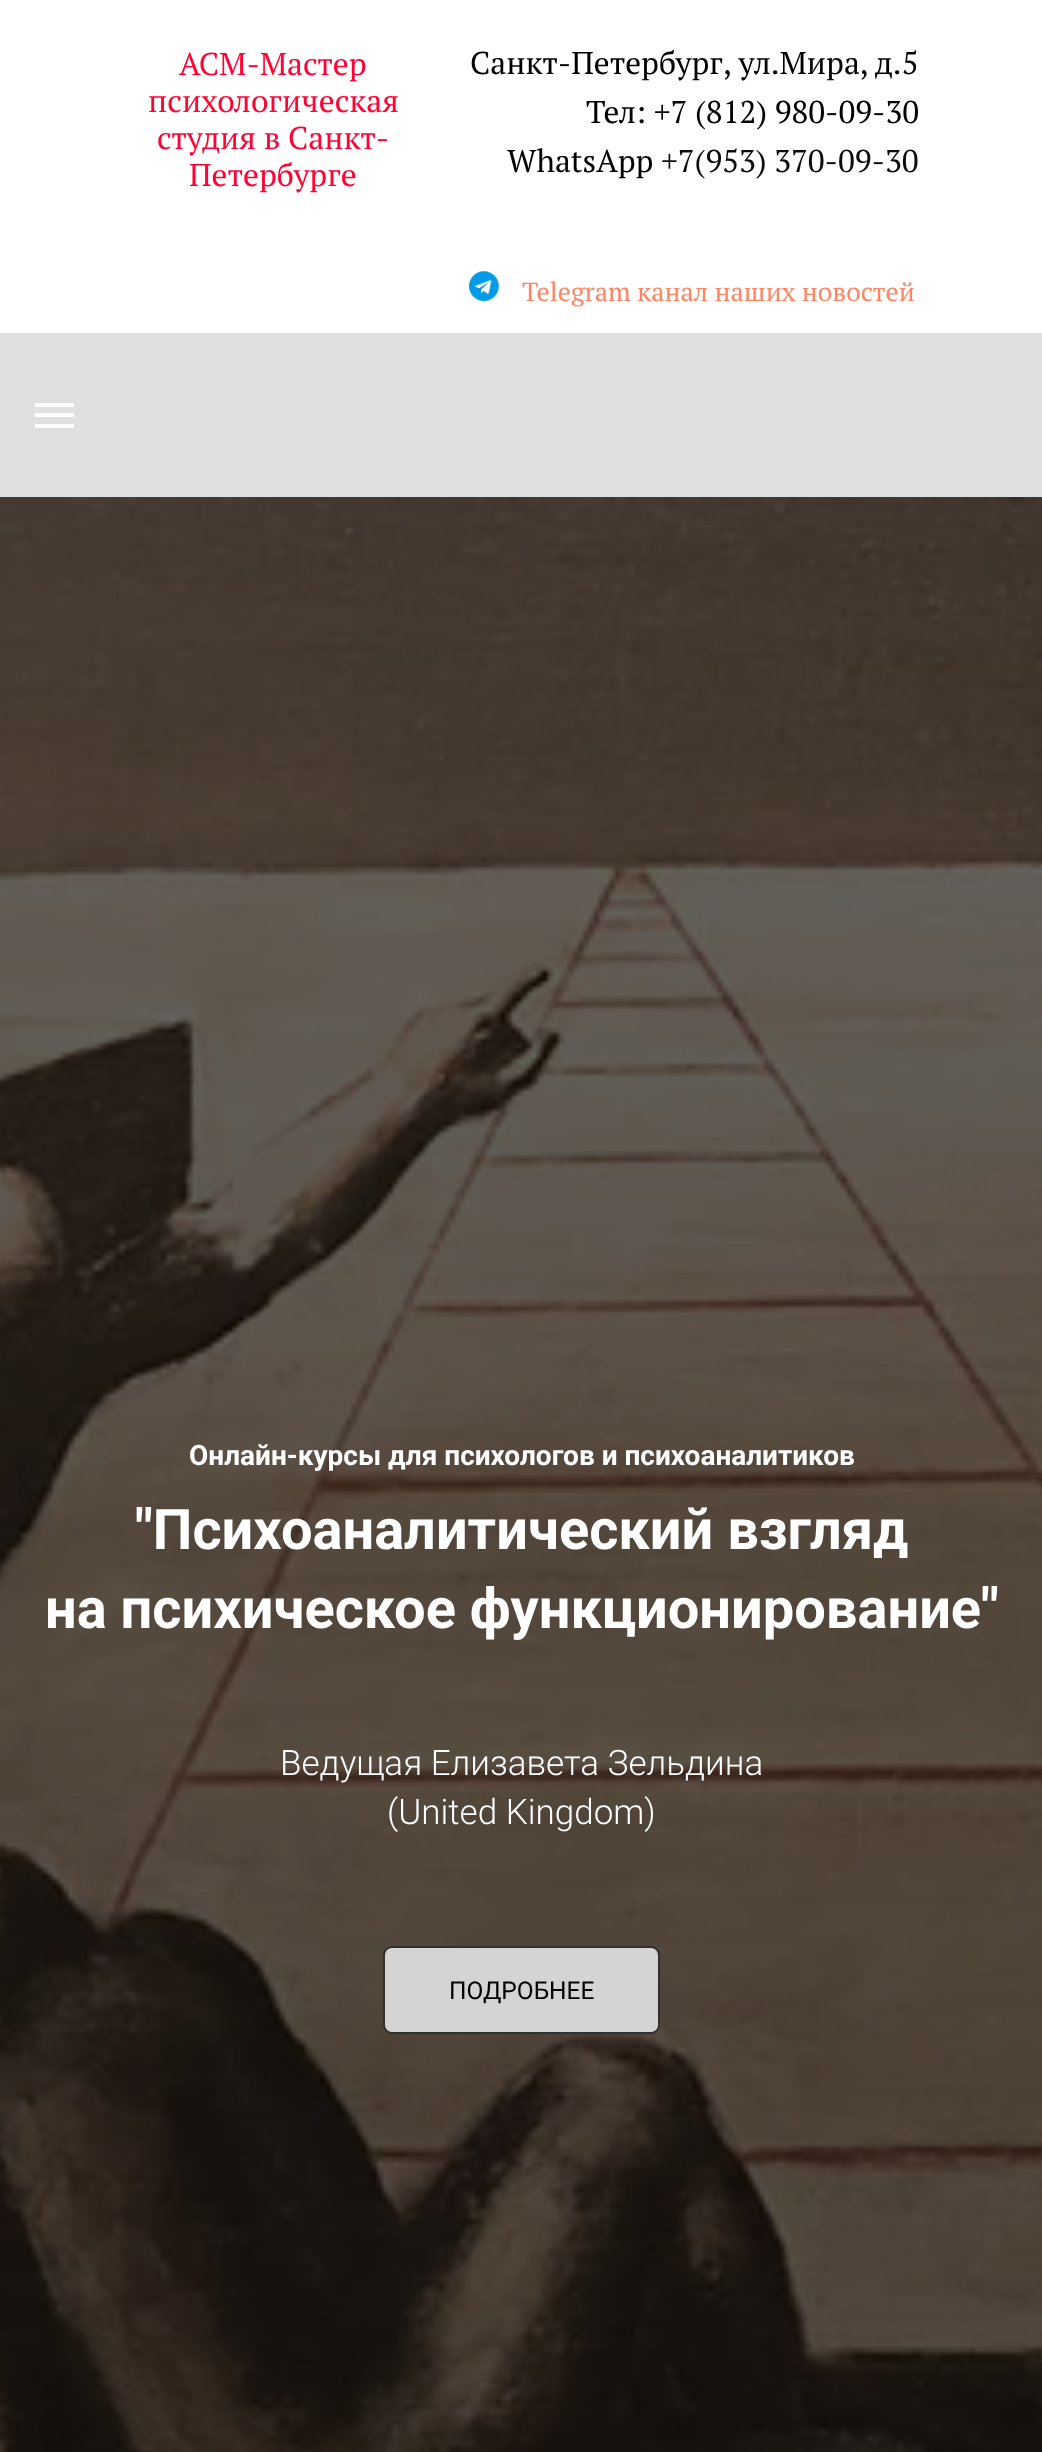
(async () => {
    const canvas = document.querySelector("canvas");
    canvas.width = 1042;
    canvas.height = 2452;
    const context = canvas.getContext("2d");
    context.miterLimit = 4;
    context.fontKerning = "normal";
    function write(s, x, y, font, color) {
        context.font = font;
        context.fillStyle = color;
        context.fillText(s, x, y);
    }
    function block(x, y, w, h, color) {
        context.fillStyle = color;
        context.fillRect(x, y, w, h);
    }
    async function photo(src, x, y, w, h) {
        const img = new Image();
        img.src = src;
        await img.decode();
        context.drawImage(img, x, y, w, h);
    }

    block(0, 0, 1042, 2452, "rgb(224, 224, 224)");
    block(0, 0, 1042, 333, "rgb(255, 255, 255)");
    write("АСМ-Мастер", 179, 75, "31.5px PT Serif", "rgb(254, 3, 52)");
    write("психологическая", 148, 112, "31.5px PT Serif", "rgb(254, 3, 52)");
    write("студия в Санкт-", 157, 149, "31.5px PT Serif", "rgb(254, 3, 52)");
    write("Петербурге", 189, 186, "31.5px PT Serif", "rgb(254, 3, 52)");
    context.wordSpacing = "-1px";
    write("Санкт-Петербург, ул.Мира, д.5", 470, 74, "31.5px PT Serif", "rgb(0, 0, 0)");
    context.wordSpacing = "0px";
    write("Тел: +7 (812) 980-09-30", 586, 123, "31.5px PT Serif", "rgb(0, 0, 0)");
    write("WhatsApp", 507, 172, "31.5px PT Serif", "rgb(0, 0, 0)");
    write("+7(953) 370-09-30", 661, 172, "31.5px PT Serif", "rgb(13, 11, 11)");
    await photo("media/1.png", 469, 271, 30, 30);
    write("Telegram канал наших новостей", 522, 301, "26.25px PT Serif", "rgb(255, 133, 98)");
    block(35, 403, 39, 4, "rgb(255, 255, 255)");
    block(35, 413, 39, 4, "rgb(255, 255, 255)");
    block(35, 424, 39, 4, "rgb(255, 255, 255)");
    await photo("media/2.png", 0, 497, 1042, 1955);
    write("Онлайн-курсы для психологов и психоаналитиков", 189, 1465, "bold 28px Roboto", "rgb(255, 255, 255)");
    write("\"Психоаналитический взгляд", 135, 1549, "bold 56px Roboto", "rgb(255, 255, 255)");
    write("на психическое функционирование\"", 45, 1628, "bold 56px Roboto", "rgb(255, 255, 255)");
    write("Ведущая Елизавета Зельдина", 280, 1775, "300 35px Roboto", "rgb(255, 255, 255)");
    write("(United Kingdom)", 387, 1824, "300 35px Roboto", "rgb(255, 255, 255)");
    context.fillStyle = "rgb(214, 211, 211)";
    context.beginPath();
    context.roundRect(384, 1947, 275, 86, 8);
    context.fill();
    context.strokeStyle = "rgb(48, 48, 48)";
    context.lineWidth = 2;
    context.stroke();
    write("ПОДРОБНЕЕ", 449, 1999, "24.5px Roboto", "rgb(0, 0, 0)");
})();
